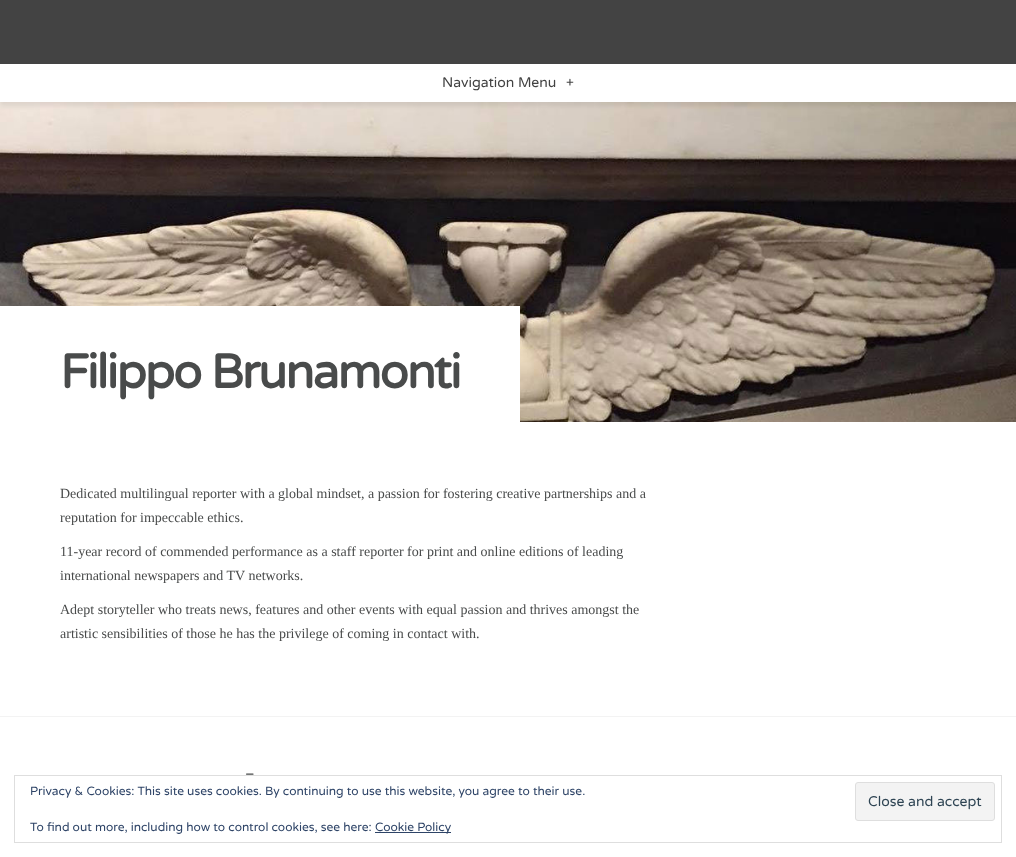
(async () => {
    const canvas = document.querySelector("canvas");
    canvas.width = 1016;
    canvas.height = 857;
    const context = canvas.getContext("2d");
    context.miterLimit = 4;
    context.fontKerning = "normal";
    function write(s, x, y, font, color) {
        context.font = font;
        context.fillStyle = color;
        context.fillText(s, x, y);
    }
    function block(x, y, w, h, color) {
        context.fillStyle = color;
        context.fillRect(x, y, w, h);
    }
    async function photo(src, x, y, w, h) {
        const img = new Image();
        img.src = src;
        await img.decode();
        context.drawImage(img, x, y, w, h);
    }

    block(0, 0, 1016, 857, "rgb(255, 255, 255)");
    await photo("media/1.png", 0, 102, 1016, 320);
    context.fillStyle = "rgba(0, 0, 0, 0.08)";
    context.filter = "blur(2px)";
    context.beginPath();
    context.rect(0, 4, 1016, 102);
    context.fill();
    context.filter = "none";
    block(0, 0, 1016, 64, "rgb(67, 67, 67)");
    block(0, 64, 1016, 38, "rgb(255, 255, 255)");
    write("Navigation Menu", 442, 87, "14px Varela Round", "rgb(67, 67, 67)");
    write("+", 566, 87, "14px Varela Round", "rgb(67, 67, 67)");
    block(0, 306, 520, 116, "rgb(255, 255, 255)");
    context.letterSpacing = "-2px";
    write("Filippo Brunamonti", 60, 388, "bold 48px Varela Round", "rgb(73, 75, 75)");
    context.letterSpacing = "0px";
    write("Dedicated multilingual reporter with a global mindset, a passion for fostering creative partnerships and a", 60, 498, "14px Liberation Serif", "rgb(73, 75, 75)");
    write("reputation for impeccable ethics.", 60, 522, "14px Liberation Serif", "rgb(73, 75, 75)");
    write("11-year record of commended performance as a staff reporter for print and online editions of leading", 60, 556, "14px Liberation Serif", "rgb(73, 75, 75)");
    write("international newspapers and TV networks.", 60, 580, "14px Liberation Serif", "rgb(73, 75, 75)");
    write("Adept storyteller who treats news, features and other events with equal passion and thrives amongst the", 60, 614, "14px Liberation Serif", "rgb(73, 75, 75)");
    write("artistic sensibilities of those he has the privilege of coming in contact with.", 60, 638, "14px Liberation Serif", "rgb(73, 75, 75)");
    block(0, 716, 1016, 1, "rgb(243, 243, 243)");
    write("–", 245, 778, "14px Varela Round", "rgb(73, 75, 75)");
    context.strokeStyle = "rgb(222, 222, 222)";
    context.strokeRect(14.5, 775.5, 987, 67);
    write("Privacy & Cookies: This site uses cookies. By continuing to use this website, you agree to their use.", 30, 795, "12px Varela Round", "rgb(46, 68, 103)");
    context.fillStyle = "rgb(243, 243, 243)";
    context.beginPath();
    context.roundRect(855.5, 782.5, 139, 38, 2.5);
    context.fill();
    context.stroke();
    write("Close and accept", 868, 806, "14px Varela Round", "rgb(46, 68, 83)");
    write("To find out more, including how to control cookies, see here:", 30, 831, "12px Varela Round", "rgb(46, 68, 103)");
    block(375, 832, 76, 1, "rgb(46, 68, 103)");
    write("Cookie Policy", 375, 831, "12px Varela Round", "rgb(46, 68, 103)");
})();
